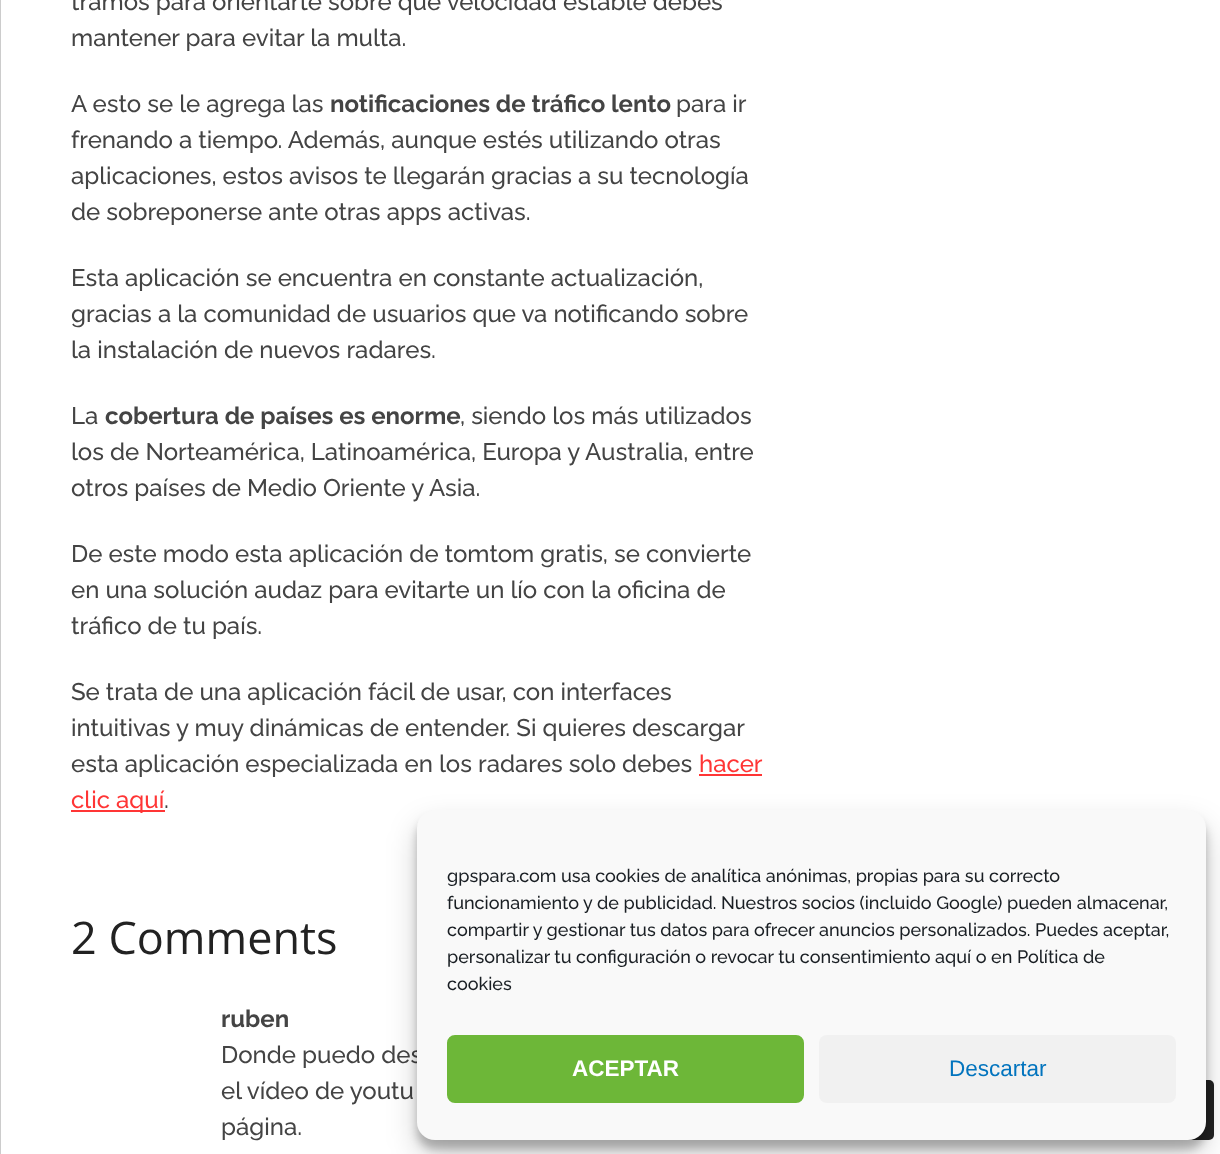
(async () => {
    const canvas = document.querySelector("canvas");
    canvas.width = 1220;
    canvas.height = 1154;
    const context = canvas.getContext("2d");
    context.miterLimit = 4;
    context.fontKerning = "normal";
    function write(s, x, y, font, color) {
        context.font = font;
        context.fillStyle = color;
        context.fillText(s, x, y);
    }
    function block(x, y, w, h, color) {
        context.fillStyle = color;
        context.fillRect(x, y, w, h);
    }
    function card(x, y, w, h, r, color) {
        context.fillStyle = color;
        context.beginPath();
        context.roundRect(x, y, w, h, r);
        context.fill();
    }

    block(0, 0, 1220, 1154, "rgb(255, 255, 255)");
    block(0, 0, 1, 1154, "rgb(204, 204, 204)");
    write("tramos para orientarte sobre que velocidad estable debes", 71, 10, "500 24px Raleway", "rgb(68, 68, 68)");
    write("mantener para evitar la multa.", 71, 46, "500 24px Raleway", "rgb(68, 68, 68)");
    write("A esto se le agrega las", 71, 112, "500 24px Raleway", "rgb(68, 68, 68)");
    write("notificaciones de tráfico lento", 330, 112, "bold 24px Raleway", "rgb(68, 68, 68)");
    write("para ir", 676, 112, "500 24px Raleway", "rgb(68, 68, 68)");
    write("frenando a tiempo. Además, aunque estés utilizando otras", 71, 148, "500 24px Raleway", "rgb(68, 68, 68)");
    write("aplicaciones, estos avisos te llegarán gracias a su tecnología", 71, 184, "500 24px Raleway", "rgb(68, 68, 68)");
    write("de sobreponerse ante otras apps activas.", 71, 220, "500 24px Raleway", "rgb(68, 68, 68)");
    write("Esta aplicación se encuentra en constante actualización,", 71, 286, "500 24px Raleway", "rgb(68, 68, 68)");
    write("gracias a la comunidad de usuarios que va notificando sobre", 71, 322, "500 24px Raleway", "rgb(68, 68, 68)");
    write("la instalación de nuevos radares.", 71, 358, "500 24px Raleway", "rgb(68, 68, 68)");
    write("La", 71, 424, "500 24px Raleway", "rgb(68, 68, 68)");
    write("cobertura de países es enorme", 105, 424, "bold 24px Raleway", "rgb(68, 68, 68)");
    write(", siendo los más utilizados", 460, 424, "500 24px Raleway", "rgb(68, 68, 68)");
    write("los de Norteamérica, Latinoamérica, Europa y Australia, entre", 71, 460, "500 24px Raleway", "rgb(68, 68, 68)");
    write("otros países de Medio Oriente y Asia.", 71, 496, "500 24px Raleway", "rgb(68, 68, 68)");
    write("De este modo esta aplicación de tomtom gratis, se convierte", 71, 562, "500 24px Raleway", "rgb(68, 68, 68)");
    write("en una solución audaz para evitarte un lío con la oficina de", 71, 598, "500 24px Raleway", "rgb(68, 68, 68)");
    write("tráfico de tu país.", 71, 634, "500 24px Raleway", "rgb(68, 68, 68)");
    write("Se trata de una aplicación fácil de usar, con interfaces", 71, 700, "500 24px Raleway", "rgb(68, 68, 68)");
    write("intuitivas y muy dinámicas de entender. Si quieres descargar", 71, 736, "500 24px Raleway", "rgb(68, 68, 68)");
    write("esta aplicación especializada en los radares solo debes", 71, 772, "500 24px Raleway", "rgb(68, 68, 68)");
    write("hacer", 699, 772, "500 24px Raleway", "rgb(255, 53, 53)");
    block(699, 774, 63, 2, "rgb(255, 53, 53)");
    block(71, 810, 94, 2, "rgb(255, 53, 53)");
    write("clic aquí", 71, 808, "500 24px Raleway", "rgb(255, 53, 53)");
    write(".", 164, 808, "500 24px Raleway", "rgb(68, 68, 68)");
    write("2 Comments", 71, 954, "45px Open Sans", "rgb(34, 34, 34)");
    write("ruben", 221, 1027, "bold 24px Raleway", "rgb(68, 68, 68)");
    write("Donde puedo des", 221, 1063, "500 24px Raleway", "rgb(68, 68, 68)");
    write("el vídeo de youtu", 221, 1099, "500 24px Raleway", "rgb(68, 68, 68)");
    write("página.", 221, 1135, "500 24px Raleway", "rgb(68, 68, 68)");
    card(1154, 1080, 60, 60, 5, "rgb(34, 34, 34)");
    context.fillStyle = "rgba(0, 0, 0, 0.23)";
    context.filter = "blur(4.5px)";
    context.beginPath();
    context.roundRect(417, 819, 789, 330, 18);
    context.fill();
    context.filter = "none";
    context.fillStyle = "rgba(0, 0, 0, 0.19)";
    context.filter = "blur(15px)";
    context.beginPath();
    context.roundRect(417, 825, 789, 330, 18);
    context.fill();
    context.filter = "none";
    card(417, 810, 789, 330, 18, "rgb(249, 249, 249)");
    write("gpspara.com usa cookies de analítica anónimas, propias para su correcto", 447, 882, "500 18px Raleway", "rgb(25, 30, 35)");
    write("funcionamiento y de publicidad. Nuestros socios (incluido Google) pueden almacenar,", 447, 909, "500 18px Raleway", "rgb(25, 30, 35)");
    write("compartir y gestionar tus datos para ofrecer anuncios personalizados. Puedes aceptar,", 447, 936, "500 18px Raleway", "rgb(25, 30, 35)");
    write("personalizar tu configuración o revocar tu consentimiento aquí o en Política de", 447, 963, "500 18px Raleway", "rgb(25, 30, 35)");
    write("cookies", 447, 990, "500 18px Raleway", "rgb(25, 30, 35)");
    context.fillStyle = "rgb(109, 183, 56)";
    context.beginPath();
    context.roundRect(448, 1036, 355, 66, 7);
    context.fill();
    context.strokeStyle = "rgb(109, 183, 56)";
    context.lineWidth = 2;
    context.stroke();
    write("ACEPTAR", 572, 1076, "bold 22.5px Liberation Sans", "rgb(255, 255, 255)");
    card(819, 1035, 357, 68, 8, "rgb(241, 241, 241)");
    write("Descartar", 949, 1076, "22.5px Liberation Sans", "rgb(2, 116, 190)");
})();
